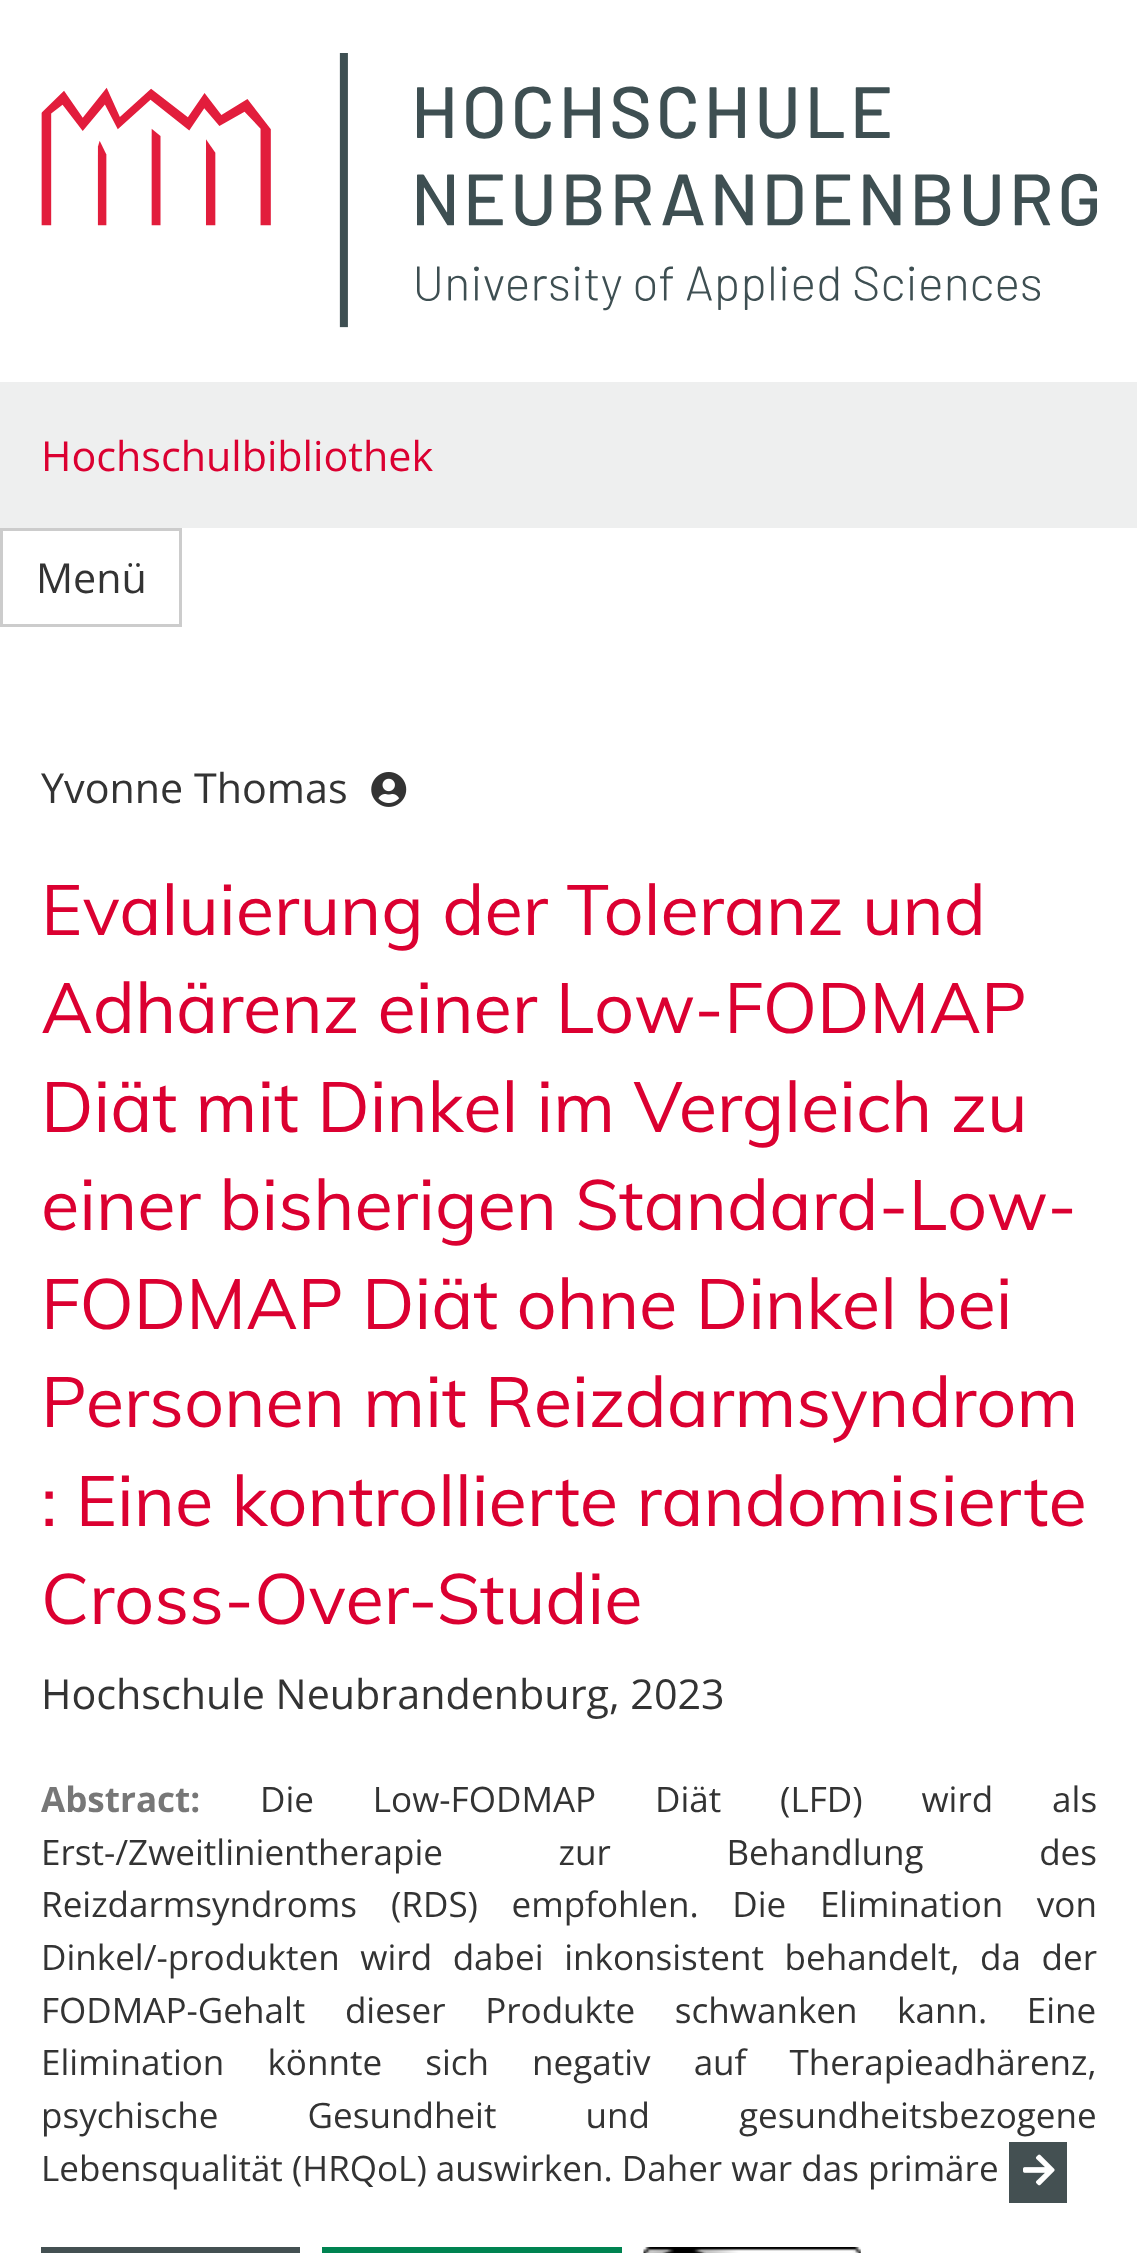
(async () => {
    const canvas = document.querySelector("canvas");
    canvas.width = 1137;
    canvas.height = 2253;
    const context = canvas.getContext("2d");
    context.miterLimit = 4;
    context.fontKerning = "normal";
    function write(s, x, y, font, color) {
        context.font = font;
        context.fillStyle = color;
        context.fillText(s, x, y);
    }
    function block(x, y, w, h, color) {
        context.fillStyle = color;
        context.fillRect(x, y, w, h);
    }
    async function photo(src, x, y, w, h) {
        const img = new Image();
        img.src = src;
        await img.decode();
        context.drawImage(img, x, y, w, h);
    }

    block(0, 0, 1137, 2253, "rgb(255, 255, 255)");
    await photo("media/1.png", 41, 53, 1056, 275);
    block(0, 382, 1137, 146, "rgb(238, 239, 239)");
    write("Hochschulbibliothek", 41, 471, "41.25px Open Sans", "rgb(219, 0, 49)");
    context.strokeStyle = "rgb(204, 204, 204)";
    context.lineWidth = 3;
    context.strokeRect(1.5, 529.5, 179, 96);
    write("Menü", 36, 593, "41.25px Open Sans", "rgb(51, 51, 51)");
    write("Yvonne Thomas", 41, 803, "41.25px Open Sans", "rgb(51, 51, 51)");
    await photo("media/2.png", 371, 772, 36, 35);
    write("Evaluierung der Toleranz und", 41, 935, "70.4px Muli", "rgb(219, 0, 49)");
    write("Adhärenz einer Low-FODMAP", 41, 1033, "70.4px Muli", "rgb(219, 0, 49)");
    write("Diät mit Dinkel im Vergleich zu", 41, 1132, "70.4px Muli", "rgb(219, 0, 49)");
    write("einer bisherigen Standard-Low-", 41, 1230, "70.4px Muli", "rgb(219, 0, 49)");
    write("FODMAP Diät ohne Dinkel bei", 41, 1329, "70.4px Muli", "rgb(219, 0, 49)");
    write("Personen mit Reizdarmsyndrom", 41, 1427, "70.4px Muli", "rgb(219, 0, 49)");
    write(": Eine kontrollierte randomisierte", 41, 1526, "70.4px Muli", "rgb(219, 0, 49)");
    write("Cross-Over-Studie", 41, 1624, "70.4px Muli", "rgb(219, 0, 49)");
    write("Hochschule Neubrandenburg, 2023", 41, 1709, "41.25px Open Sans", "rgb(51, 51, 51)");
    write("Abstract:", 41, 1812, "bold 35.05px Open Sans", "rgb(119, 119, 119)");
    context.wordSpacing = "49.75px";
    write("Die Low-FODMAP Diät (LFD) wird als", 260, 1812, "35.05px Open Sans", "rgb(51, 51, 51)");
    context.wordSpacing = "106.5px";
    write("Erst-/Zweitlinientherapie zur Behandlung des", 41, 1865, "35.05px Open Sans", "rgb(51, 51, 51)");
    context.wordSpacing = "0px";
    write("Reizdarmsyndroms", 41, 1917, "35.05px Open Sans", "rgb(51, 51, 51)");
    context.wordSpacing = "24.5px";
    write("(RDS) empfohlen. Die Elimination von", 391, 1917, "35.05px Open Sans", "rgb(51, 51, 51)");
    context.wordSpacing = "11.5px";
    write("Dinkel/-produkten wird dabei inkonsistent behandelt,", 41, 1970, "35.05px Open Sans", "rgb(51, 51, 51)");
    write("da der", 980, 1970, "35.05px Open Sans", "rgb(51, 51, 51)");
    context.wordSpacing = "30.5px";
    write("FODMAP-Gehalt dieser Produkte schwanken kann. Eine", 41, 2023, "35.05px Open Sans", "rgb(51, 51, 51)");
    context.wordSpacing = "34px";
    write("Elimination könnte sich", 41, 2075, "35.05px Open Sans", "rgb(51, 51, 51)");
    write("negativ auf Therapieadhärenz,", 532, 2075, "35.05px Open Sans", "rgb(51, 51, 51)");
    context.wordSpacing = "80px";
    write("psychische Gesundheit und gesundheitsbezogene", 41, 2128, "35.05px Open Sans", "rgb(51, 51, 51)");
    context.wordSpacing = "0px";
    write("Lebensqualität (HRQoL) auswirken. Daher war das primäre", 41, 2181, "35.05px Open Sans", "rgb(51, 51, 51)");
    block(1009, 2142, 58, 61, "rgb(68, 80, 82)");
    await photo("media/3.png", 1023, 2154, 32, 32);
    block(41, 2247, 259, 6, "rgb(68, 80, 82)");
    block(322, 2247, 300, 6, "rgb(0, 131, 81)");
    await photo("media/4.png", 643, 2247, 218, 6);
})();
